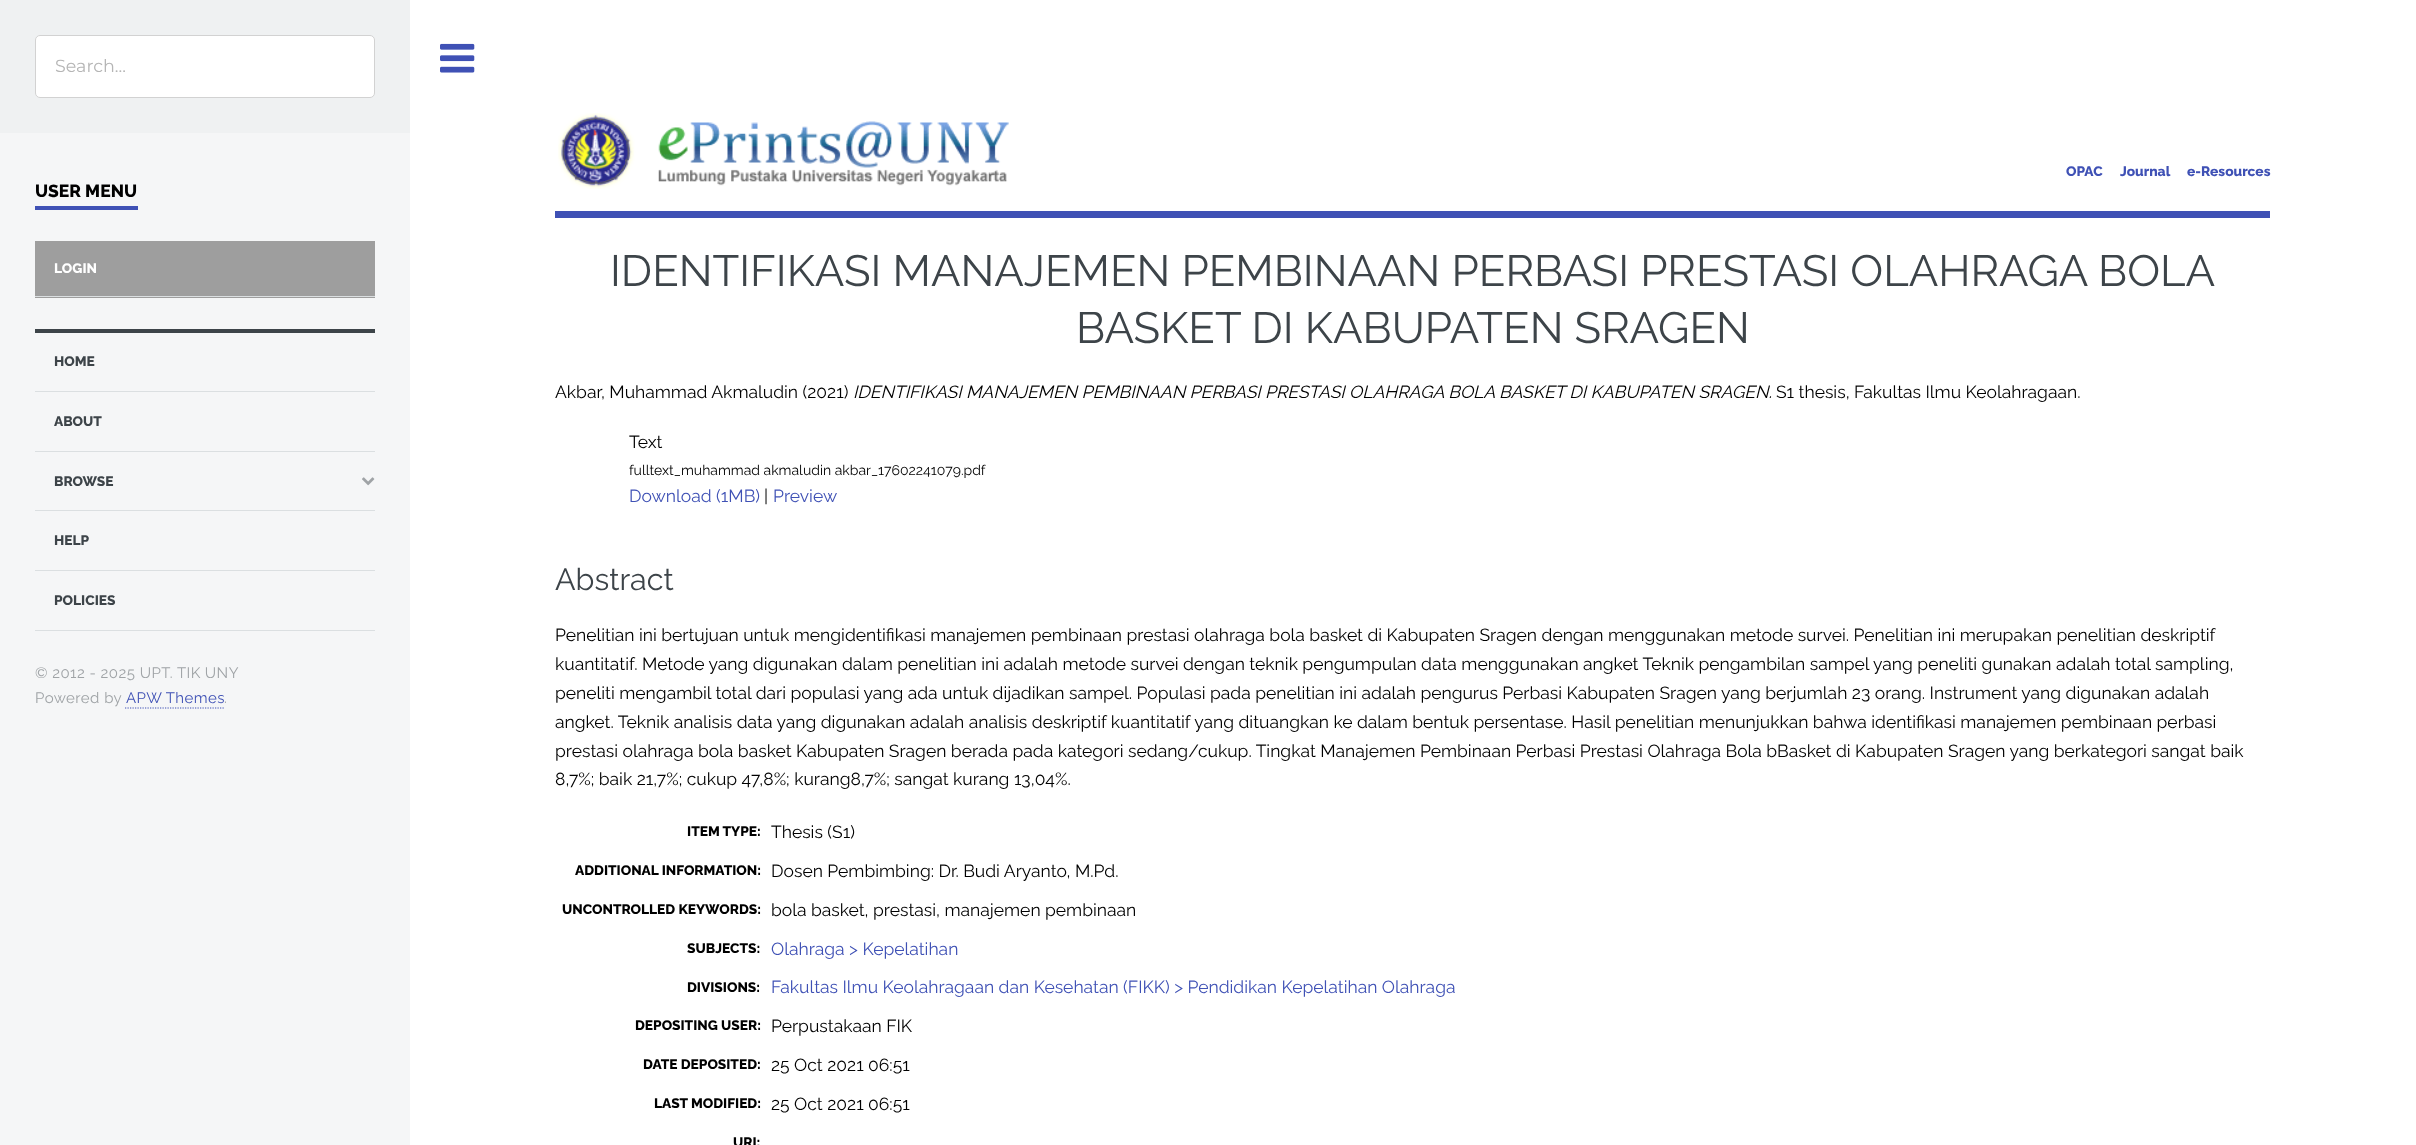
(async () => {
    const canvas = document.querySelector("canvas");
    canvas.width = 2416;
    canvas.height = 1145;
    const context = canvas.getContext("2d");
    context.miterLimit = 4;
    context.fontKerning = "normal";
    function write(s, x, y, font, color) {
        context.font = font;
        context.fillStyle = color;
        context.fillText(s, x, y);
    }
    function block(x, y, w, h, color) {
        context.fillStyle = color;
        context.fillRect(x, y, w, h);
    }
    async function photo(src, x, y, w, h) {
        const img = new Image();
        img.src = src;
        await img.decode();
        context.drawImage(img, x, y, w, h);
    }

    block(0, 0, 2416, 1145, "rgb(255, 255, 255)");
    block(0, 133, 410, 1012, "rgb(245, 246, 247)");
    block(0, 0, 410, 133, "rgb(239, 241, 242)");
    context.fillStyle = "rgb(255, 255, 255)";
    context.beginPath();
    context.roundRect(35.5, 35.5, 339, 62, 4.5);
    context.fill();
    context.strokeStyle = "rgb(210, 210, 210)";
    context.stroke();
    write("Search...", 55, 72, "17.5px Montserrat", "rgb(181, 181, 181)");
    block(35, 206, 103, 4, "rgb(63, 81, 181)");
    write("USER MENU", 35, 197, "800 17.5px Raleway", "rgb(0, 0, 0)");
    block(35, 241, 340, 57, "rgb(158, 158, 158)");
    block(35, 296, 340, 1, "rgb(219, 223, 225)");
    write("LOGIN", 54, 273, "800 13.75px Raleway", "rgb(255, 255, 255)");
    block(35, 329, 340, 4, "rgb(61, 68, 73)");
    write("HOME", 54, 366, "800 13.75px Raleway", "rgb(61, 68, 73)");
    block(35, 391, 340, 1, "rgb(219, 223, 225)");
    write("ABOUT", 54, 426, "800 13.75px Raleway", "rgb(61, 68, 73)");
    block(35, 451, 340, 1, "rgb(219, 223, 225)");
    write("BROWSE", 54, 486, "800 13.75px Raleway", "rgb(61, 68, 73)");
    await photo("media/1.png", 362, 477, 13, 9);
    block(35, 510, 340, 1, "rgb(219, 223, 225)");
    write("HELP", 54, 545, "800 13.75px Raleway", "rgb(61, 68, 73)");
    block(35, 570, 340, 1, "rgb(219, 223, 225)");
    block(35, 630, 340, 1, "rgb(219, 223, 225)");
    write("POLICIES", 54, 605, "800 13.75px Raleway", "rgb(61, 68, 73)");
    context.letterSpacing = "0.45px";
    write("© 2012 - 2025 UPT. TIK UNY", 35, 678, "15px Raleway", "rgb(159, 163, 166)");
    write("Powered by", 35, 703, "15px Raleway", "rgb(159, 163, 166)");
    write("APW Themes", 126, 703, "15px Raleway", "rgb(63, 81, 181)");
    context.beginPath();
    context.moveTo(125, 708);
    context.lineTo(225, 708);
    context.strokeStyle = "rgb(63, 81, 181)";
    context.lineWidth = 1.2;
    context.setLineDash([1.25, 1.25]);
    context.stroke();
    write(".", 224, 703, "15px Raleway", "rgb(159, 163, 166)");
    await photo("media/2.png", 440, 43, 35, 30);
    block(555, 211, 1715, 7, "rgb(63, 81, 181)");
    await photo("media/3.png", 558, 113, 451, 76);
    context.letterSpacing = "0px";
    write("OPAC", 2066, 176, "800 13.75px Raleway", "rgb(63, 81, 181)");
    write("Journal", 2120, 176, "800 13.75px Raleway", "rgb(63, 81, 181)");
    write("e-Resources", 2187, 176, "800 13.75px Raleway", "rgb(63, 81, 181)");
    write("IDENTIFIKASI MANAJEMEN PEMBINAAN PERBASI PRESTASI OLAHRAGA BOLA", 610, 286, "43.75px Raleway", "rgb(61, 68, 73)");
    write("BASKET DI KABUPATEN SRAGEN", 1076, 343, "43.75px Raleway", "rgb(61, 68, 73)");
    write("Akbar, Muhammad Akmaludin (2021)", 555, 398, "17.5px Raleway", "rgb(0, 0, 0)");
    write("IDENTIFIKASI MANAJEMEN PEMBINAAN PERBASI PRESTASI OLAHRAGA BOLA BASKET DI KABUPATEN SRAGEN.", 853, 398, "italic 17.5px Raleway", "rgb(0, 0, 0)");
    write("S1 thesis, Fakultas Ilmu Keolahragaan.", 1776, 398, "17.5px Raleway", "rgb(0, 0, 0)");
    write("Text", 629, 448, "17.5px Raleway", "rgb(0, 0, 0)");
    write("fulltext_muhammad akmaludin akbar_17602241079.pdf", 629, 475, "14px Raleway", "rgb(0, 0, 0)");
    write("Download (1MB)", 629, 502, "17.5px Raleway", "rgb(63, 81, 181)");
    write("|", 764, 502, "17.5px Raleway", "rgb(0, 0, 0)");
    write("Preview", 773, 502, "17.5px Raleway", "rgb(63, 81, 181)");
    write("Abstract", 555, 590, "30.5px Raleway", "rgb(61, 68, 73)");
    write("Penelitian ini bertujuan untuk mengidentifikasi manajemen pembinaan prestasi olahraga bola basket di Kabupaten Sragen dengan menggunakan metode survei. Penelitian ini merupakan penelitian deskriptif", 555, 641, "17.5px Raleway", "rgb(0, 0, 0)");
    write("kuantitatif. Metode yang digunakan dalam penelitian ini adalah metode survei dengan teknik pengumpulan data menggunakan angket Teknik pengambilan sampel yang peneliti gunakan adalah total sampling,", 555, 670, "17.5px Raleway", "rgb(0, 0, 0)");
    write("peneliti mengambil total dari populasi yang ada untuk dijadikan sampel. Populasi pada penelitian ini adalah pengurus Perbasi Kabupaten Sragen yang berjumlah 23 orang. Instrument yang digunakan adalah", 555, 699, "17.5px Raleway", "rgb(0, 0, 0)");
    write("angket. Teknik analisis data yang digunakan adalah analisis deskriptif kuantitatif yang dituangkan ke dalam bentuk persentase. Hasil penelitian menunjukkan bahwa identifikasi manajemen pembinaan perbasi", 555, 728, "17.5px Raleway", "rgb(0, 0, 0)");
    write("prestasi olahraga bola basket Kabupaten Sragen berada pada kategori sedang/cukup. Tingkat Manajemen Pembinaan Perbasi Prestasi Olahraga Bola bBasket di Kabupaten Sragen yang berkategori sangat baik", 555, 757, "17.5px Raleway", "rgb(0, 0, 0)");
    write("8,7%; baik 21,7%; cukup 47,8%; kurang8,7%; sangat kurang 13,04%.", 555, 785, "17.5px Raleway", "rgb(0, 0, 0)");
    write("ITEM TYPE:", 687, 836, "800 13.75px Raleway", "rgb(0, 0, 0)");
    write("Thesis (S1)", 771, 838, "17.5px Raleway", "rgb(0, 0, 0)");
    write("ADDITIONAL INFORMATION:", 575, 875, "800 13.75px Raleway", "rgb(0, 0, 0)");
    write("Dosen Pembimbing: Dr. Budi Aryanto, M.Pd.", 771, 877, "17.5px Raleway", "rgb(0, 0, 0)");
    write("UNCONTROLLED KEYWORDS:", 562, 914, "800 13.75px Raleway", "rgb(0, 0, 0)");
    write("bola basket, prestasi, manajemen pembinaan", 771, 916, "17.5px Raleway", "rgb(0, 0, 0)");
    write("SUBJECTS:", 687, 953, "800 13.75px Raleway", "rgb(0, 0, 0)");
    write("Olahraga > Kepelatihan", 771, 955, "17.5px Raleway", "rgb(63, 81, 181)");
    write("DIVISIONS:", 687, 992, "800 13.75px Raleway", "rgb(0, 0, 0)");
    write("Fakultas Ilmu Keolahragaan dan Kesehatan (FIKK) > Pendidikan Kepelatihan Olahraga", 771, 993, "17.5px Raleway", "rgb(63, 81, 181)");
    write("DEPOSITING USER:", 635, 1030, "800 13.75px Raleway", "rgb(0, 0, 0)");
    write("Perpustakaan FIK", 771, 1032, "17.5px Raleway", "rgb(0, 0, 0)");
    write("DATE DEPOSITED:", 643, 1069, "800 13.75px Raleway", "rgb(0, 0, 0)");
    write("25 Oct 2021 06:51", 771, 1071, "17.5px Raleway", "rgb(0, 0, 0)");
    write("LAST MODIFIED:", 654, 1108, "800 13.75px Raleway", "rgb(0, 0, 0)");
    write("25 Oct 2021 06:51", 771, 1110, "17.5px Raleway", "rgb(0, 0, 0)");
    write("URI:", 733, 1147, "800 13.75px Raleway", "rgb(0, 0, 0)");
})();
